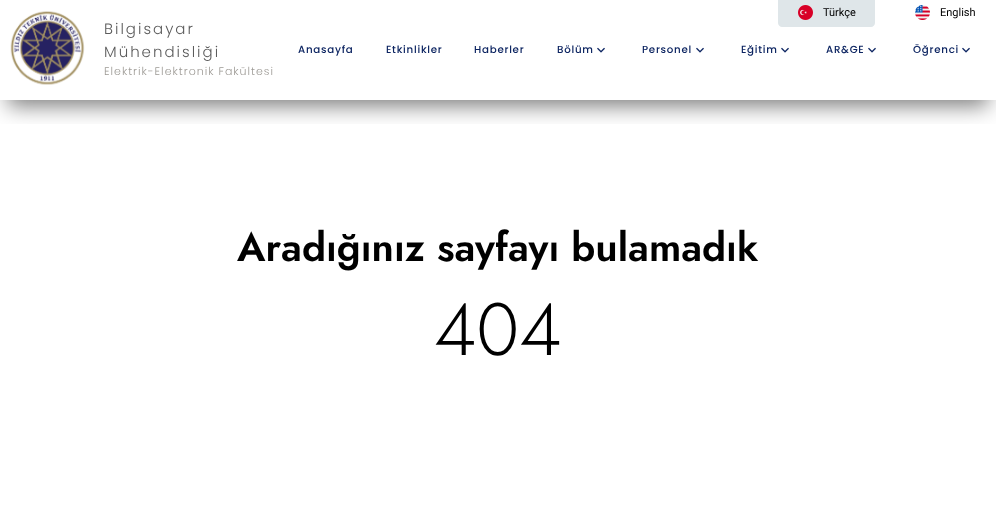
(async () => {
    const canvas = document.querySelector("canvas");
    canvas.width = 996;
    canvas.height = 529;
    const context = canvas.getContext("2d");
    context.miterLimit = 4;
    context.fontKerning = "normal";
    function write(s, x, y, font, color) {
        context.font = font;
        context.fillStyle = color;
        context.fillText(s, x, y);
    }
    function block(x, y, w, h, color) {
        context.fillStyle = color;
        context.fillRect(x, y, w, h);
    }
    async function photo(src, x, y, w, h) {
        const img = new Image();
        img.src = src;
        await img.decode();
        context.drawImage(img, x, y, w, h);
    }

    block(0, 0, 996, 529, "rgb(255, 255, 255)");
    context.save();
    context.beginPath();
    context.rect(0, 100, 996, 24);
    context.clip();
    context.fillStyle = "rgba(0, 0, 0, 0.51)";
    context.filter = "blur(10.5px)";
    context.beginPath();
    context.rect(8, 22, 980, 84);
    context.fill();
    context.filter = "none";
    context.restore();
    await photo("media/1.png", 10, 11, 75, 74);
    context.letterSpacing = "2px";
    write("Bilgisayar", 104, 34, "300 15px Poppins", "rgb(92, 92, 92)");
    write("Mühendisliği", 104, 57, "300 15px Poppins", "rgb(92, 92, 92)");
    context.letterSpacing = "1px";
    write("Elektrik-Elektronik Fakültesi", 104, 75, "300 11px Poppins", "rgb(157, 154, 149)");
    context.fillStyle = "rgb(223, 230, 233)";
    context.beginPath();
    context.moveTo(778, -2);
    context.lineTo(875, -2);
    context.lineTo(875, 23);
    context.bezierCurveTo(875, 25, 873, 27, 871, 27);
    context.lineTo(782, 27);
    context.bezierCurveTo(780, 27, 778, 25, 778, 23);
    context.closePath();
    context.fill();
    await photo("media/2.png", 798, 5, 15, 15);
    context.letterSpacing = "0px";
    write("Türkçe", 823, 16, "11px Roboto", "rgb(0, 0, 0)");
    await photo("media/3.png", 915, 5, 15, 15);
    write("English", 940, 16, "11px Roboto", "rgb(0, 0, 0)");
    context.letterSpacing = "0.75px";
    write("Anasayfa", 298, 53, "500 10.25px Poppins", "rgb(12, 36, 97)");
    write("Etkinlikler", 386, 53, "500 10.25px Poppins", "rgb(12, 36, 97)");
    write("Haberler", 474, 53, "500 10.25px Poppins", "rgb(12, 36, 97)");
    write("Bölüm", 557, 53, "500 10.25px Poppins", "rgb(12, 36, 97)");
    await photo("media/4.png", 597, 47, 8, 6);
    write("Personel", 642, 53, "500 10.25px Poppins", "rgb(12, 36, 97)");
    await photo("media/4.png", 696, 47, 8, 6);
    write("Eğitim", 741, 53, "500 10.25px Poppins", "rgb(12, 36, 97)");
    await photo("media/4.png", 781, 47, 8, 6);
    write("AR&GE", 826, 53, "500 10.25px Poppins", "rgb(12, 36, 97)");
    await photo("media/4.png", 868, 47, 8, 6);
    write("Öğrenci", 913, 53, "500 10.25px Poppins", "rgb(12, 36, 97)");
    await photo("media/4.png", 962, 47, 8, 6);
    context.letterSpacing = "0px";
    write("Aradığınız sayfayı bulamadık", 237, 261, "600 40px Jost", "rgb(0, 0, 0)");
    write("404", 434, 355, "300 74px Jost", "rgb(0, 0, 0)");
})();
